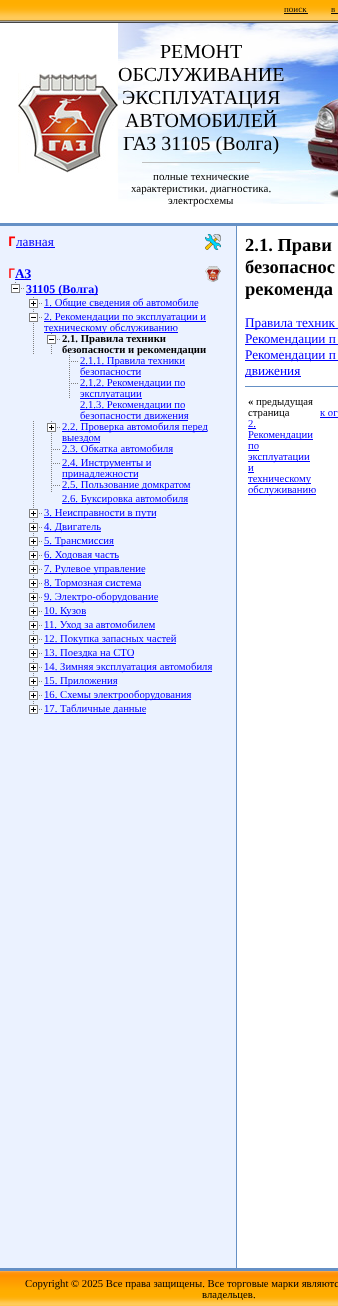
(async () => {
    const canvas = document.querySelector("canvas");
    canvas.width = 338;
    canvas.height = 1306;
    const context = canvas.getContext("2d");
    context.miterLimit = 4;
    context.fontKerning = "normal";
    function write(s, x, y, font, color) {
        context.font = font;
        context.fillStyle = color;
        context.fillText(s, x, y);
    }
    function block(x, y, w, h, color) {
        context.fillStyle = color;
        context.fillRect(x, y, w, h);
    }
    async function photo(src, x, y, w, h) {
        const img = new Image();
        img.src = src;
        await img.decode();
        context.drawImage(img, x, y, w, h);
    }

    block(0, 0, 338, 1306, "rgb(255, 255, 255)");
    await photo("media/1.png", 0, 0, 338, 23);
    write("поиск", 284, 12, "9px Liberation Serif", "rgb(10, 10, 10)");
    block(284, 13, 24, 1, "rgb(10, 10, 10)");
    write("в", 331, 12, "9px Liberation Serif", "rgb(10, 10, 10)");
    block(331, 13, 7, 1, "rgb(10, 10, 10)");
    await photo("media/2.png", 18, 73, 100, 100);
    await photo("media/3.png", 118, 23, 166, 181);
    write("РЕМОНТ", 160, 58, "20px Liberation Serif", "rgb(0, 0, 0)");
    write("ОБСЛУЖИВАНИЕ", 118, 81, "20px Liberation Serif", "rgb(0, 0, 0)");
    write("ЭКСПЛУАТАЦИЯ", 122, 104, "20px Liberation Serif", "rgb(0, 0, 0)");
    write("АВТОМОБИЛЕЙ", 125, 127, "20px Liberation Serif", "rgb(0, 0, 0)");
    write("ГАЗ 31105 (Волга)", 123, 150, "20px Liberation Serif", "rgb(0, 0, 0)");
    block(142, 162, 118, 1, "rgb(192, 192, 192)");
    write("полные технические", 153, 180, "11px Liberation Serif", "rgb(0, 0, 0)");
    write("характеристики. диагностика.", 131, 192, "11px Liberation Serif", "rgb(0, 0, 0)");
    write("электросхемы", 168, 204, "11px Liberation Serif", "rgb(0, 0, 0)");
    await photo("media/4.png", 284, 23, 54, 181);
    block(0, 223, 338, 3, "rgb(101, 144, 197)");
    block(0, 226, 236, 1042, "rgb(235, 242, 255)");
    await photo("media/5.png", 205, 234, 16, 16);
    write("Г", 8, 246, "bold 13.25px Noto Sans", "rgb(255, 0, 0)");
    write("лавная", 16, 246, "13.25px Liberation Serif", "rgb(0, 0, 255)");
    block(16, 247, 39, 1, "rgb(0, 0, 255)");
    await photo("media/6.png", 205, 266, 16, 16);
    write("Г", 8, 278, "500 13.25px Noto Sans", "rgb(255, 0, 0)");
    write("АЗ", 15, 278, "bold 13.25px Liberation Serif", "rgb(0, 0, 255)");
    block(15, 279, 16, 1, "rgb(0, 0, 255)");
    await photo("media/7.png", 11, 282, 13, 11);
    block(26, 294, 72, 1, "rgb(0, 0, 255)");
    write("31105 (Волга)", 26, 293, "bold 12px Liberation Serif", "rgb(0, 0, 255)");
    await photo("media/8.png", 33, 297, 1, 13);
    await photo("media/9.png", 29, 299, 13, 9);
    block(44, 307, 154, 1, "rgb(0, 0, 255)");
    write("1. Общие сведения об автомобиле", 44, 306, "10.7px Liberation Serif", "rgb(0, 0, 255)");
    await photo("media/10.png", 33, 311, 1, 21);
    await photo("media/11.png", 29, 313, 13, 9);
    block(44, 321, 162, 1, "rgb(0, 0, 255)");
    write("2. Рекомендации по эксплуатации и", 44, 320, "10.7px Liberation Serif", "rgb(0, 0, 255)");
    block(44, 332, 134, 1, "rgb(0, 0, 255)");
    await photo("media/10.png", 51, 333, 1, 21);
    write("техническому обслуживанию", 44, 331, "10.7px Liberation Serif", "rgb(0, 0, 255)");
    await photo("media/10.png", 33, 333, 1, 21);
    await photo("media/11.png", 47, 335, 13, 9);
    write("2.1. Правила техники", 62, 342, "bold 10.7px Liberation Serif", "rgb(0, 0, 0)");
    await photo("media/10.png", 69, 355, 1, 21);
    write("безопасности и рекомендации", 62, 353, "bold 10.7px Liberation Serif", "rgb(0, 0, 0)");
    await photo("media/12.png", 71, 361, 7, 1);
    block(80, 365, 105, 1, "rgb(0, 0, 255)");
    write("2.1.1. Правила техники", 80, 364, "10.7px Liberation Serif", "rgb(0, 0, 255)");
    write("безопасности", 80, 375, "10.7px Liberation Serif", "rgb(0, 0, 255)");
    block(80, 376, 61, 1, "rgb(0, 0, 255)");
    await photo("media/10.png", 69, 377, 1, 21);
    await photo("media/12.png", 71, 383, 7, 1);
    block(80, 387, 105, 1, "rgb(0, 0, 255)");
    write("2.1.2. Рекомендации по", 80, 386, "10.7px Liberation Serif", "rgb(0, 0, 255)");
    block(80, 398, 62, 1, "rgb(0, 0, 255)");
    write("эксплуатации", 80, 397, "10.7px Liberation Serif", "rgb(0, 0, 255)");
    block(80, 409, 105, 1, "rgb(0, 0, 255)");
    write("2.1.3. Рекомендации по", 80, 408, "10.7px Liberation Serif", "rgb(0, 0, 255)");
    block(80, 420, 108, 1, "rgb(0, 0, 255)");
    write("безопасности движения", 80, 419, "10.7px Liberation Serif", "rgb(0, 0, 255)");
    await photo("media/10.png", 33, 421, 1, 21);
    await photo("media/10.png", 51, 421, 1, 21);
    await photo("media/9.png", 47, 423, 13, 9);
    block(62, 431, 145, 1, "rgb(0, 0, 255)");
    write("2.2. Проверка автомобиля перед", 62, 430, "10.7px Liberation Serif", "rgb(0, 0, 255)");
    block(62, 442, 38, 1, "rgb(0, 0, 255)");
    write("выездом", 62, 441, "10.7px Liberation Serif", "rgb(0, 0, 255)");
    await photo("media/8.png", 33, 443, 1, 13);
    await photo("media/8.png", 51, 443, 1, 13);
    await photo("media/12.png", 53, 449, 7, 1);
    write("2.3. Обкатка автомобиля", 62, 452, "10.7px Liberation Serif", "rgb(0, 0, 255)");
    block(62, 453, 111, 1, "rgb(0, 0, 255)");
    await photo("media/10.png", 33, 457, 1, 21);
    await photo("media/10.png", 51, 457, 1, 21);
    await photo("media/12.png", 53, 463, 7, 1);
    block(62, 467, 89, 1, "rgb(0, 0, 255)");
    write("2.4. Инструменты и", 62, 466, "10.7px Liberation Serif", "rgb(0, 0, 255)");
    block(62, 478, 76, 1, "rgb(0, 0, 255)");
    write("принадлежности", 62, 477, "10.7px Liberation Serif", "rgb(0, 0, 255)");
    await photo("media/8.png", 33, 479, 1, 13);
    await photo("media/8.png", 51, 479, 1, 13);
    await photo("media/12.png", 53, 485, 7, 1);
    block(62, 489, 128, 1, "rgb(0, 0, 255)");
    write("2.5. Пользование домкратом", 62, 488, "10.7px Liberation Serif", "rgb(0, 0, 255)");
    await photo("media/8.png", 33, 493, 1, 13);
    block(62, 503, 126, 1, "rgb(0, 0, 255)");
    write("2.6. Буксировка автомобиля", 62, 502, "10.7px Liberation Serif", "rgb(0, 0, 255)");
    await photo("media/8.png", 33, 507, 1, 13);
    await photo("media/9.png", 29, 509, 13, 9);
    block(44, 517, 112, 1, "rgb(0, 0, 255)");
    write("3. Неисправности в пути", 44, 516, "10.7px Liberation Serif", "rgb(0, 0, 255)");
    await photo("media/8.png", 33, 521, 1, 13);
    await photo("media/9.png", 29, 523, 13, 9);
    block(44, 531, 57, 1, "rgb(0, 0, 255)");
    write("4. Двигатель", 44, 530, "10.7px Liberation Serif", "rgb(0, 0, 255)");
    await photo("media/8.png", 33, 535, 1, 13);
    await photo("media/9.png", 29, 537, 13, 9);
    block(44, 545, 70, 1, "rgb(0, 0, 255)");
    write("5. Трансмиссия", 44, 544, "10.7px Liberation Serif", "rgb(0, 0, 255)");
    await photo("media/8.png", 33, 549, 1, 13);
    await photo("media/9.png", 29, 551, 13, 9);
    block(44, 559, 75, 1, "rgb(0, 0, 255)");
    write("6. Ходовая часть", 44, 558, "10.7px Liberation Serif", "rgb(0, 0, 255)");
    await photo("media/8.png", 33, 563, 1, 13);
    await photo("media/9.png", 29, 565, 13, 9);
    block(44, 573, 101, 1, "rgb(0, 0, 255)");
    write("7. Рулевое управление", 44, 572, "10.7px Liberation Serif", "rgb(0, 0, 255)");
    await photo("media/8.png", 33, 577, 1, 13);
    await photo("media/9.png", 29, 579, 13, 9);
    block(44, 587, 97, 1, "rgb(0, 0, 255)");
    write("8. Тормозная система", 44, 586, "10.7px Liberation Serif", "rgb(0, 0, 255)");
    await photo("media/8.png", 33, 591, 1, 13);
    await photo("media/9.png", 29, 593, 13, 9);
    block(44, 601, 114, 1, "rgb(0, 0, 255)");
    write("9. Электро-оборудование", 44, 600, "10.7px Liberation Serif", "rgb(0, 0, 255)");
    await photo("media/8.png", 33, 605, 1, 13);
    await photo("media/9.png", 29, 607, 13, 9);
    block(44, 615, 42, 1, "rgb(0, 0, 255)");
    write("10. Кузов", 44, 614, "10.7px Liberation Serif", "rgb(0, 0, 255)");
    await photo("media/8.png", 33, 619, 1, 13);
    await photo("media/9.png", 29, 621, 13, 9);
    block(44, 629, 111, 1, "rgb(0, 0, 255)");
    write("11. Уход за автомобилем", 44, 628, "10.7px Liberation Serif", "rgb(0, 0, 255)");
    await photo("media/8.png", 33, 633, 1, 13);
    await photo("media/9.png", 29, 635, 13, 9);
    block(44, 643, 132, 1, "rgb(0, 0, 255)");
    write("12. Покупка запасных частей", 44, 642, "10.7px Liberation Serif", "rgb(0, 0, 255)");
    await photo("media/8.png", 33, 647, 1, 13);
    await photo("media/9.png", 29, 649, 13, 9);
    block(44, 657, 90, 1, "rgb(0, 0, 255)");
    write("13. Поездка на СТО", 44, 656, "10.7px Liberation Serif", "rgb(0, 0, 255)");
    await photo("media/8.png", 33, 661, 1, 13);
    await photo("media/9.png", 29, 663, 13, 9);
    block(44, 671, 168, 1, "rgb(0, 0, 255)");
    write("14. Зимняя эксплуатация автомобиля", 44, 670, "10.7px Liberation Serif", "rgb(0, 0, 255)");
    await photo("media/8.png", 33, 675, 1, 13);
    await photo("media/9.png", 29, 677, 13, 9);
    block(44, 685, 73, 1, "rgb(0, 0, 255)");
    write("15. Приложения", 44, 684, "10.7px Liberation Serif", "rgb(0, 0, 255)");
    await photo("media/8.png", 33, 689, 1, 13);
    await photo("media/9.png", 29, 691, 13, 9);
    block(44, 699, 147, 1, "rgb(0, 0, 255)");
    write("16. Схемы электрооборудования", 44, 698, "10.7px Liberation Serif", "rgb(0, 0, 255)");
    await photo("media/13.png", 29, 703, 13, 11);
    block(44, 713, 102, 1, "rgb(0, 0, 255)");
    write("17. Табличные данные", 44, 712, "10.7px Liberation Serif", "rgb(0, 0, 255)");
    block(236, 226, 1, 1042, "rgb(101, 144, 197)");
    write("2.1. Прави", 245, 251, "bold 18.5px Liberation Serif", "rgb(0, 0, 0)");
    write("безопаснос", 245, 273, "bold 18.5px Liberation Serif", "rgb(0, 0, 0)");
    write("рекоменда", 245, 295, "bold 18.5px Liberation Serif", "rgb(0, 0, 0)");
    block(245, 328, 93, 1, "rgb(0, 0, 255)");
    write("Правила техник", 245, 327, "13.25px Liberation Serif", "rgb(0, 0, 255)");
    block(245, 344, 93, 1, "rgb(0, 0, 255)");
    write("Рекомендации п", 245, 343, "13.25px Liberation Serif", "rgb(0, 0, 255)");
    block(245, 360, 93, 1, "rgb(0, 0, 255)");
    write("Рекомендации п", 245, 359, "13.25px Liberation Serif", "rgb(0, 0, 255)");
    block(245, 376, 56, 1, "rgb(0, 0, 255)");
    write("движения", 245, 375, "13.25px Liberation Serif", "rgb(0, 0, 255)");
    block(245, 386, 93, 1, "rgb(101, 144, 197)");
    write("«", 248, 405, "bold 10.7px Liberation Serif", "rgb(0, 0, 0)");
    write("предыдущая", 256, 405, "10.7px Liberation Serif", "rgb(0, 0, 0)");
    write("страница", 248, 416, "10.7px Liberation Serif", "rgb(0, 0, 0)");
    write("2.", 248, 427, "10.7px Liberation Serif", "rgb(0, 0, 255)");
    block(248, 428, 8, 1, "rgb(0, 0, 255)");
    block(248, 439, 65, 1, "rgb(0, 0, 255)");
    write("Рекомендации", 248, 438, "10.7px Liberation Serif", "rgb(0, 0, 255)");
    write("по", 248, 449, "10.7px Liberation Serif", "rgb(0, 0, 255)");
    block(248, 450, 11, 1, "rgb(0, 0, 255)");
    block(248, 461, 62, 1, "rgb(0, 0, 255)");
    write("эксплуатации", 248, 460, "10.7px Liberation Serif", "rgb(0, 0, 255)");
    write("и", 248, 471, "10.7px Liberation Serif", "rgb(0, 0, 255)");
    block(248, 472, 6, 1, "rgb(0, 0, 255)");
    block(248, 483, 63, 1, "rgb(0, 0, 255)");
    write("техническому", 248, 482, "10.7px Liberation Serif", "rgb(0, 0, 255)");
    block(248, 494, 68, 1, "rgb(0, 0, 255)");
    write("обслуживанию", 248, 493, "10.7px Liberation Serif", "rgb(0, 0, 255)");
    write("к ог", 320, 416, "10.7px Liberation Serif", "rgb(0, 0, 255)");
    block(320, 417, 18, 1, "rgb(0, 0, 255)");
    block(0, 1268, 338, 3, "rgb(101, 144, 197)");
    await photo("media/14.png", 0, 1271, 338, 35);
    write("Copyright © 2025 Все права защищены. Все торговые марки являютс", 25, 1287, "10.7px Liberation Serif", "rgb(0, 0, 0)");
    write("владельцев.", 202, 1298, "10.7px Liberation Serif", "rgb(0, 0, 0)");
})();
